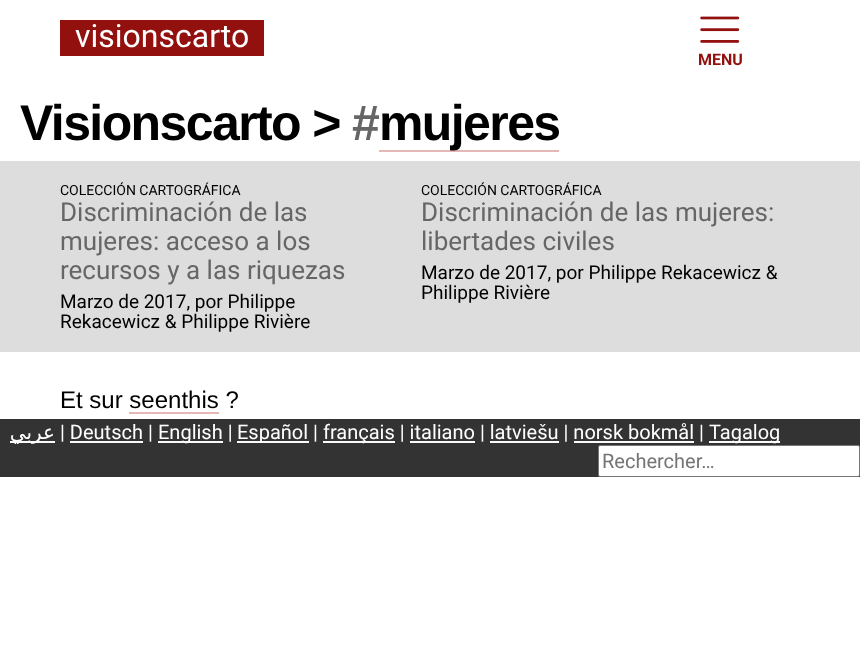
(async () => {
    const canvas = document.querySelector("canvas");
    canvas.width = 860;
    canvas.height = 668;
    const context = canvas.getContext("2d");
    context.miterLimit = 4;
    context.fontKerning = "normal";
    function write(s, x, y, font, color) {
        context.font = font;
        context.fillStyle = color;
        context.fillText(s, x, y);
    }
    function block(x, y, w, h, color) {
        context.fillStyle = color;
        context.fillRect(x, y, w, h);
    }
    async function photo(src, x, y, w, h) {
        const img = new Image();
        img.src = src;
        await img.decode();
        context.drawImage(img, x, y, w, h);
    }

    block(0, 0, 860, 668, "rgb(255, 255, 255)");
    block(60, 20, 204, 36, "rgb(146, 16, 14)");
    write("visionscarto", 75, 47, "32px Roboto", "rgb(255, 255, 255)");
    await photo("media/1.png", 700, 16, 40, 27);
    write("MENU", 698, 65, "bold 16px Roboto", "rgb(146, 16, 14)");
    context.letterSpacing = "-1.6px";
    write("Visionscarto >", 20, 140, "bold 50px Liberation Sans", "rgb(0, 0, 0)");
    write("#", 352, 140, "bold 50px Liberation Sans", "rgb(102, 102, 102)");
    block(379, 150, 180, 2, "rgb(229, 183, 183)");
    write("mujeres", 379, 140, "bold 50px Liberation Sans", "rgb(0, 0, 0)");
    block(0, 161, 860, 191, "rgb(221, 221, 221)");
    context.letterSpacing = "0px";
    write("COLECCIÓN CARTOGRÁFICA", 60, 195, "14px Roboto", "rgb(0, 0, 0)");
    write("Discriminación de las", 60, 221, "26px Roboto", "rgb(102, 102, 102)");
    write("mujeres: acceso a los", 60, 250, "26px Roboto", "rgb(102, 102, 102)");
    write("recursos y a las riquezas", 60, 279, "26px Roboto", "rgb(102, 102, 102)");
    write("Marzo de 2017, por Philippe", 60, 308, "19px Roboto", "rgb(0, 0, 0)");
    write("Rekacewicz & Philippe Rivière", 60, 328, "19px Roboto", "rgb(0, 0, 0)");
    write("COLECCIÓN CARTOGRÁFICA", 421, 195, "14px Roboto", "rgb(0, 0, 0)");
    write("Discriminación de las mujeres:", 421, 221, "26px Roboto", "rgb(102, 102, 102)");
    write("libertades civiles", 421, 250, "26px Roboto", "rgb(102, 102, 102)");
    write("Marzo de 2017, por Philippe Rekacewicz &", 421, 279, "19px Roboto", "rgb(0, 0, 0)");
    write("Philippe Rivière", 421, 299, "19px Roboto", "rgb(0, 0, 0)");
    write("Et sur seenthis ?", 60, 408, "24px Liberation Sans", "rgb(0, 0, 0)");
    block(129, 412, 90, 2, "rgb(229, 183, 183)");
    block(0, 419, 860, 58, "rgb(51, 51, 51)");
    block(10, 441, 45, 2, "rgb(250, 250, 250)");
    context.direction = "rtl";
    write("عربي", 55, 439, "20px DejaVu Sans", "rgb(255, 255, 255)");
    context.direction = "ltr";
    write("| Deutsch |", 60, 439, "20px Roboto", "rgb(255, 255, 255)");
    block(158, 441, 65, 2, "rgb(250, 250, 250)");
    write("English |", 158, 439, "20px Roboto", "rgb(255, 255, 255)");
    block(237, 441, 72, 2, "rgb(250, 250, 250)");
    write("Español |", 237, 439, "20px Roboto", "rgb(255, 255, 255)");
    block(323, 441, 72, 2, "rgb(250, 250, 250)");
    write("français | italiano | latviešu | norsk bokmål |", 323, 439, "20px Roboto", "rgb(255, 255, 255)");
    block(709, 441, 71, 2, "rgb(250, 250, 250)");
    write("Tagalog", 709, 439, "20px Roboto", "rgb(255, 255, 255)");
    block(70, 441, 73, 2, "rgb(250, 250, 250)");
    block(410, 441, 65, 2, "rgb(250, 250, 250)");
    block(490, 441, 69, 2, "rgb(250, 250, 250)");
    block(574, 441, 120, 2, "rgb(250, 250, 250)");
    context.fillStyle = "rgb(255, 255, 255)";
    context.beginPath();
    context.roundRect(598.5, 445.5, 261, 31, 1.5);
    context.fill();
    context.strokeStyle = "rgb(118, 118, 118)";
    context.stroke();
    write("Rechercher…", 602, 468, "20px Roboto", "rgb(117, 117, 117)");
})();
